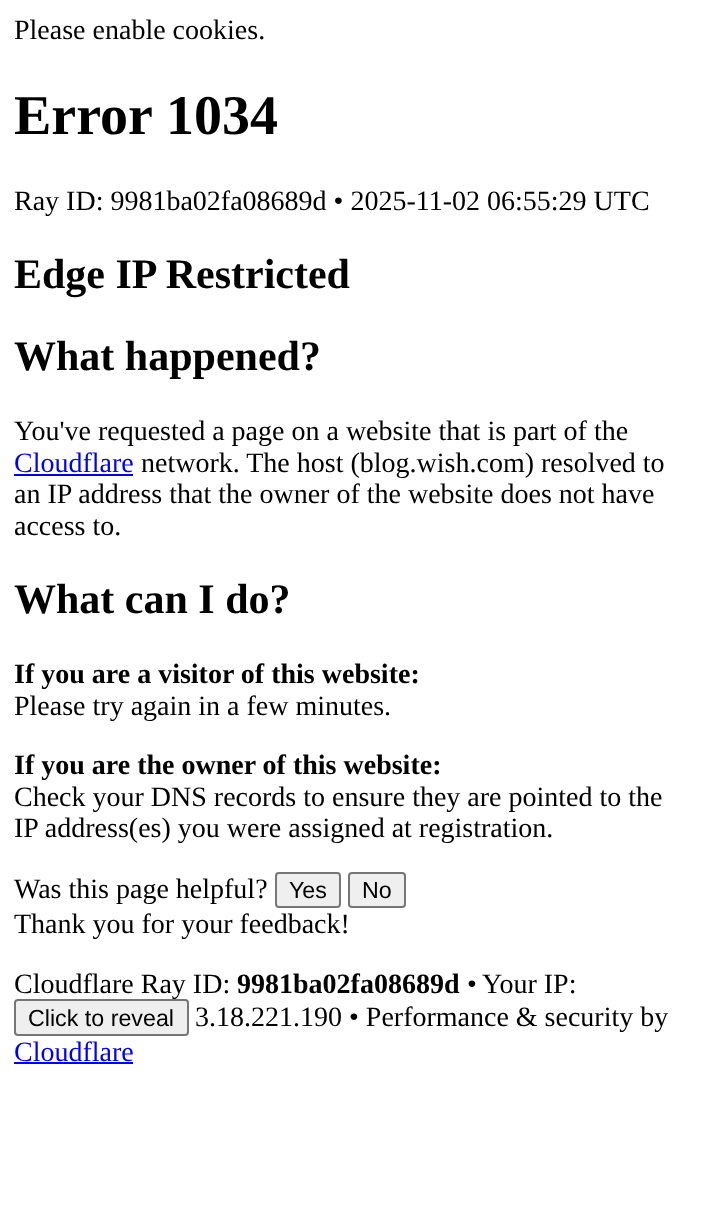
(async () => {
    const canvas = document.querySelector("canvas");
    canvas.width = 705;
    canvas.height = 1222;
    const context = canvas.getContext("2d");
    context.miterLimit = 4;
    context.fontKerning = "normal";
    function write(s, x, y, font, color) {
        context.font = font;
        context.fillStyle = color;
        context.fillText(s, x, y);
    }
    function block(x, y, w, h, color) {
        context.fillStyle = color;
        context.fillRect(x, y, w, h);
    }

    block(0, 0, 705, 1222, "rgb(255, 255, 255)");
    write("Please enable cookies.", 14, 39, "28px Liberation Serif", "rgb(0, 0, 0)");
    write("Error", 14, 134, "bold 56px Liberation Serif", "rgb(0, 0, 0)");
    write("1034", 166, 134, "bold 56px Liberation Serif", "rgb(0, 0, 0)");
    write("Ray ID: 9981ba02fa08689d • 2025-11-02 06:55:29 UTC", 14, 210, "28px Liberation Serif", "rgb(0, 0, 0)");
    write("Edge IP Restricted", 14, 288, "bold 42px Liberation Serif", "rgb(0, 0, 0)");
    write("What happened?", 14, 370, "bold 42px Liberation Serif", "rgb(0, 0, 0)");
    write("You've requested a page on a website that is part of the", 14, 440, "28px Liberation Serif", "rgb(0, 0, 0)");
    write("Cloudflare", 14, 472, "28px Liberation Serif", "rgb(0, 0, 238)");
    block(14, 474, 119, 2, "rgb(0, 0, 238)");
    write("network. The host (blog.wish.com) resolved to", 141, 472, "28px Liberation Serif", "rgb(0, 0, 0)");
    write("an IP address that the owner of the website does not have", 14, 503, "28px Liberation Serif", "rgb(0, 0, 0)");
    write("access to.", 14, 535, "28px Liberation Serif", "rgb(0, 0, 0)");
    write("What can I do?", 14, 613, "bold 42px Liberation Serif", "rgb(0, 0, 0)");
    write("If you are a visitor of this website:", 14, 683, "bold 28px Liberation Serif", "rgb(0, 0, 0)");
    write("Please try again in a few minutes.", 14, 715, "28px Liberation Serif", "rgb(0, 0, 0)");
    write("If you are the owner of this website:", 14, 774, "bold 28px Liberation Serif", "rgb(0, 0, 0)");
    write("Check your DNS records to ensure they are pointed to the", 14, 806, "28px Liberation Serif", "rgb(0, 0, 0)");
    write("IP address(es) you were assigned at registration.", 14, 837, "28px Liberation Serif", "rgb(0, 0, 0)");
    write("Was this page helpful?", 14, 898, "28px Liberation Serif", "rgb(0, 0, 0)");
    context.fillStyle = "rgb(239, 239, 239)";
    context.beginPath();
    context.roundRect(276, 873, 64, 34, 3);
    context.fill();
    context.strokeStyle = "rgb(118, 118, 118)";
    context.lineWidth = 2;
    context.stroke();
    write("Yes", 289, 898, "23.25px Liberation Sans", "rgb(0, 0, 0)");
    context.fillStyle = "rgb(239, 239, 239)";
    context.beginPath();
    context.roundRect(349, 873, 56, 34, 3);
    context.fill();
    context.stroke();
    write("No", 362, 898, "23.25px Liberation Sans", "rgb(0, 0, 0)");
    write("Thank you for your feedback!", 14, 933, "28px Liberation Serif", "rgb(0, 0, 0)");
    write("Cloudflare Ray ID:", 14, 993, "28px Liberation Serif", "rgb(0, 0, 0)");
    write("9981ba02fa08689d", 237, 993, "bold 28px Liberation Serif", "rgb(0, 0, 0)");
    write("Your IP:", 482, 993, "28px Liberation Serif", "rgb(0, 0, 0)");
    context.fillStyle = "rgb(239, 239, 239)";
    context.beginPath();
    context.roundRect(15, 1000, 173, 35, 3);
    context.fill();
    context.stroke();
    write("Click to reveal", 28, 1026, "23.25px Liberation Sans", "rgb(0, 0, 0)");
    write("3.18.221.190 • Performance & security by", 195, 1026, "28px Liberation Serif", "rgb(0, 0, 0)");
    write("•", 467, 993, "28px Liberation Serif", "rgb(0, 0, 0)");
    write("Cloudflare", 14, 1061, "28px Liberation Serif", "rgb(0, 0, 238)");
    block(14, 1062, 119, 2, "rgb(0, 0, 238)");
})();
